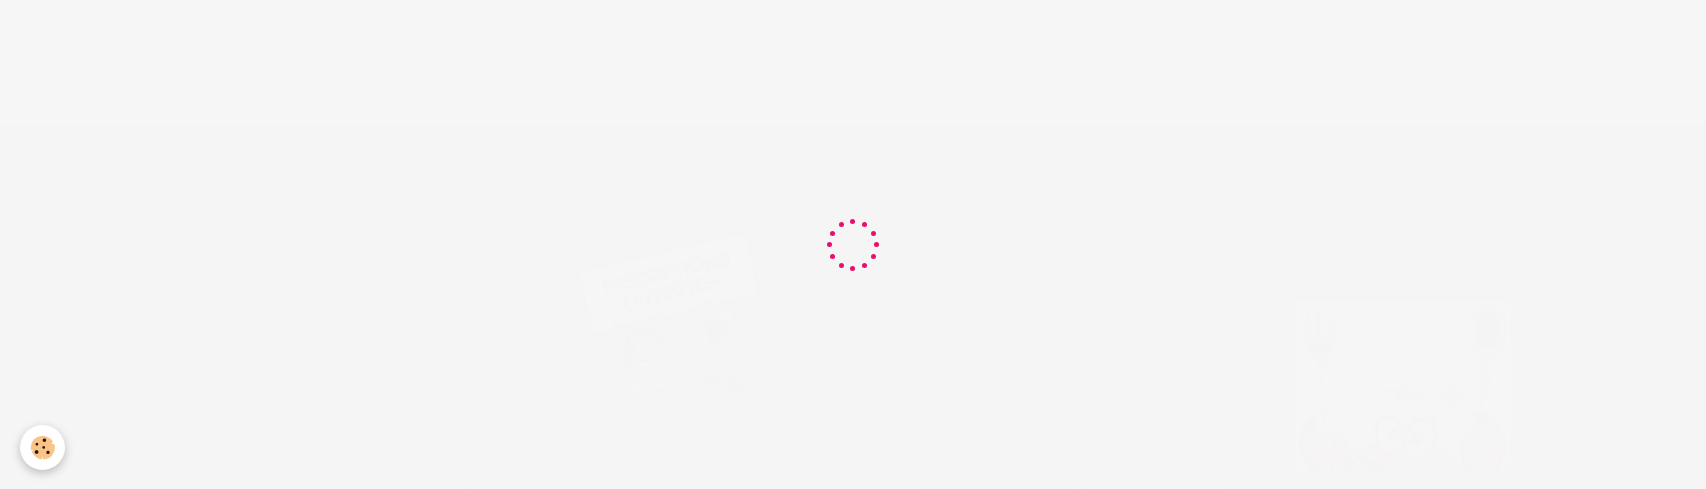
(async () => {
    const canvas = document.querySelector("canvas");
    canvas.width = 1706;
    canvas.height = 489;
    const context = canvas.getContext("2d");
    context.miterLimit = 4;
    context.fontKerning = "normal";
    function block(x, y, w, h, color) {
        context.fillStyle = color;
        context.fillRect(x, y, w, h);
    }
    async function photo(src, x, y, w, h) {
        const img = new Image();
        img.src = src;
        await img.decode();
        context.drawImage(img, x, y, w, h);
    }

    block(0, 0, 1706, 489, "rgb(246, 246, 246)");
    await photo("media/1.png", 0, 125, 1706, 364);
    await photo("media/2.png", 1668, 9, 18, 18);
    await photo("media/3.png", 559, 214, 217, 185);
    await photo("media/4.png", 1296, 300, 214, 170);
    context.fillStyle = "rgb(232, 14, 111)";
    context.beginPath();
    context.arc(852.5, 221.5, 2.5, 0, Math.PI * 2);
    context.fill();
    context.beginPath();
    context.arc(841.5, 224.5, 2.5, 0, Math.PI * 2);
    context.fill();
    context.beginPath();
    context.arc(864.5, 224.5, 2.5, 0, Math.PI * 2);
    context.fill();
    context.beginPath();
    context.arc(832.5, 233.5, 2.5, 0, Math.PI * 2);
    context.fill();
    context.beginPath();
    context.arc(873.5, 233.5, 2.5, 0, Math.PI * 2);
    context.fill();
    context.beginPath();
    context.arc(829.5, 244.5, 2.5, 0, Math.PI * 2);
    context.fill();
    context.beginPath();
    context.arc(876.5, 244.5, 2.5, 0, Math.PI * 2);
    context.fill();
    context.beginPath();
    context.arc(832.5, 256.5, 2.5, 0, Math.PI * 2);
    context.fill();
    context.beginPath();
    context.arc(873.5, 256.5, 2.5, 0, Math.PI * 2);
    context.fill();
    context.beginPath();
    context.arc(841.5, 265.5, 2.5, 0, Math.PI * 2);
    context.fill();
    context.beginPath();
    context.arc(864.5, 265.5, 2.5, 0, Math.PI * 2);
    context.fill();
    context.beginPath();
    context.arc(852.5, 268.5, 2.5, 0, Math.PI * 2);
    context.fill();
    context.fillStyle = "rgba(0, 0, 0, 0.24)";
    context.filter = "blur(5px)";
    context.beginPath();
    context.roundRect(20, 428, 45, 45, 22.5);
    context.fill();
    context.filter = "none";
    context.fillStyle = "rgb(255, 255, 255)";
    context.beginPath();
    context.arc(42.5, 447.5, 22.5, 0, Math.PI * 2);
    context.fill();
    await photo("media/5.png", 30, 435, 25, 25);
})();
